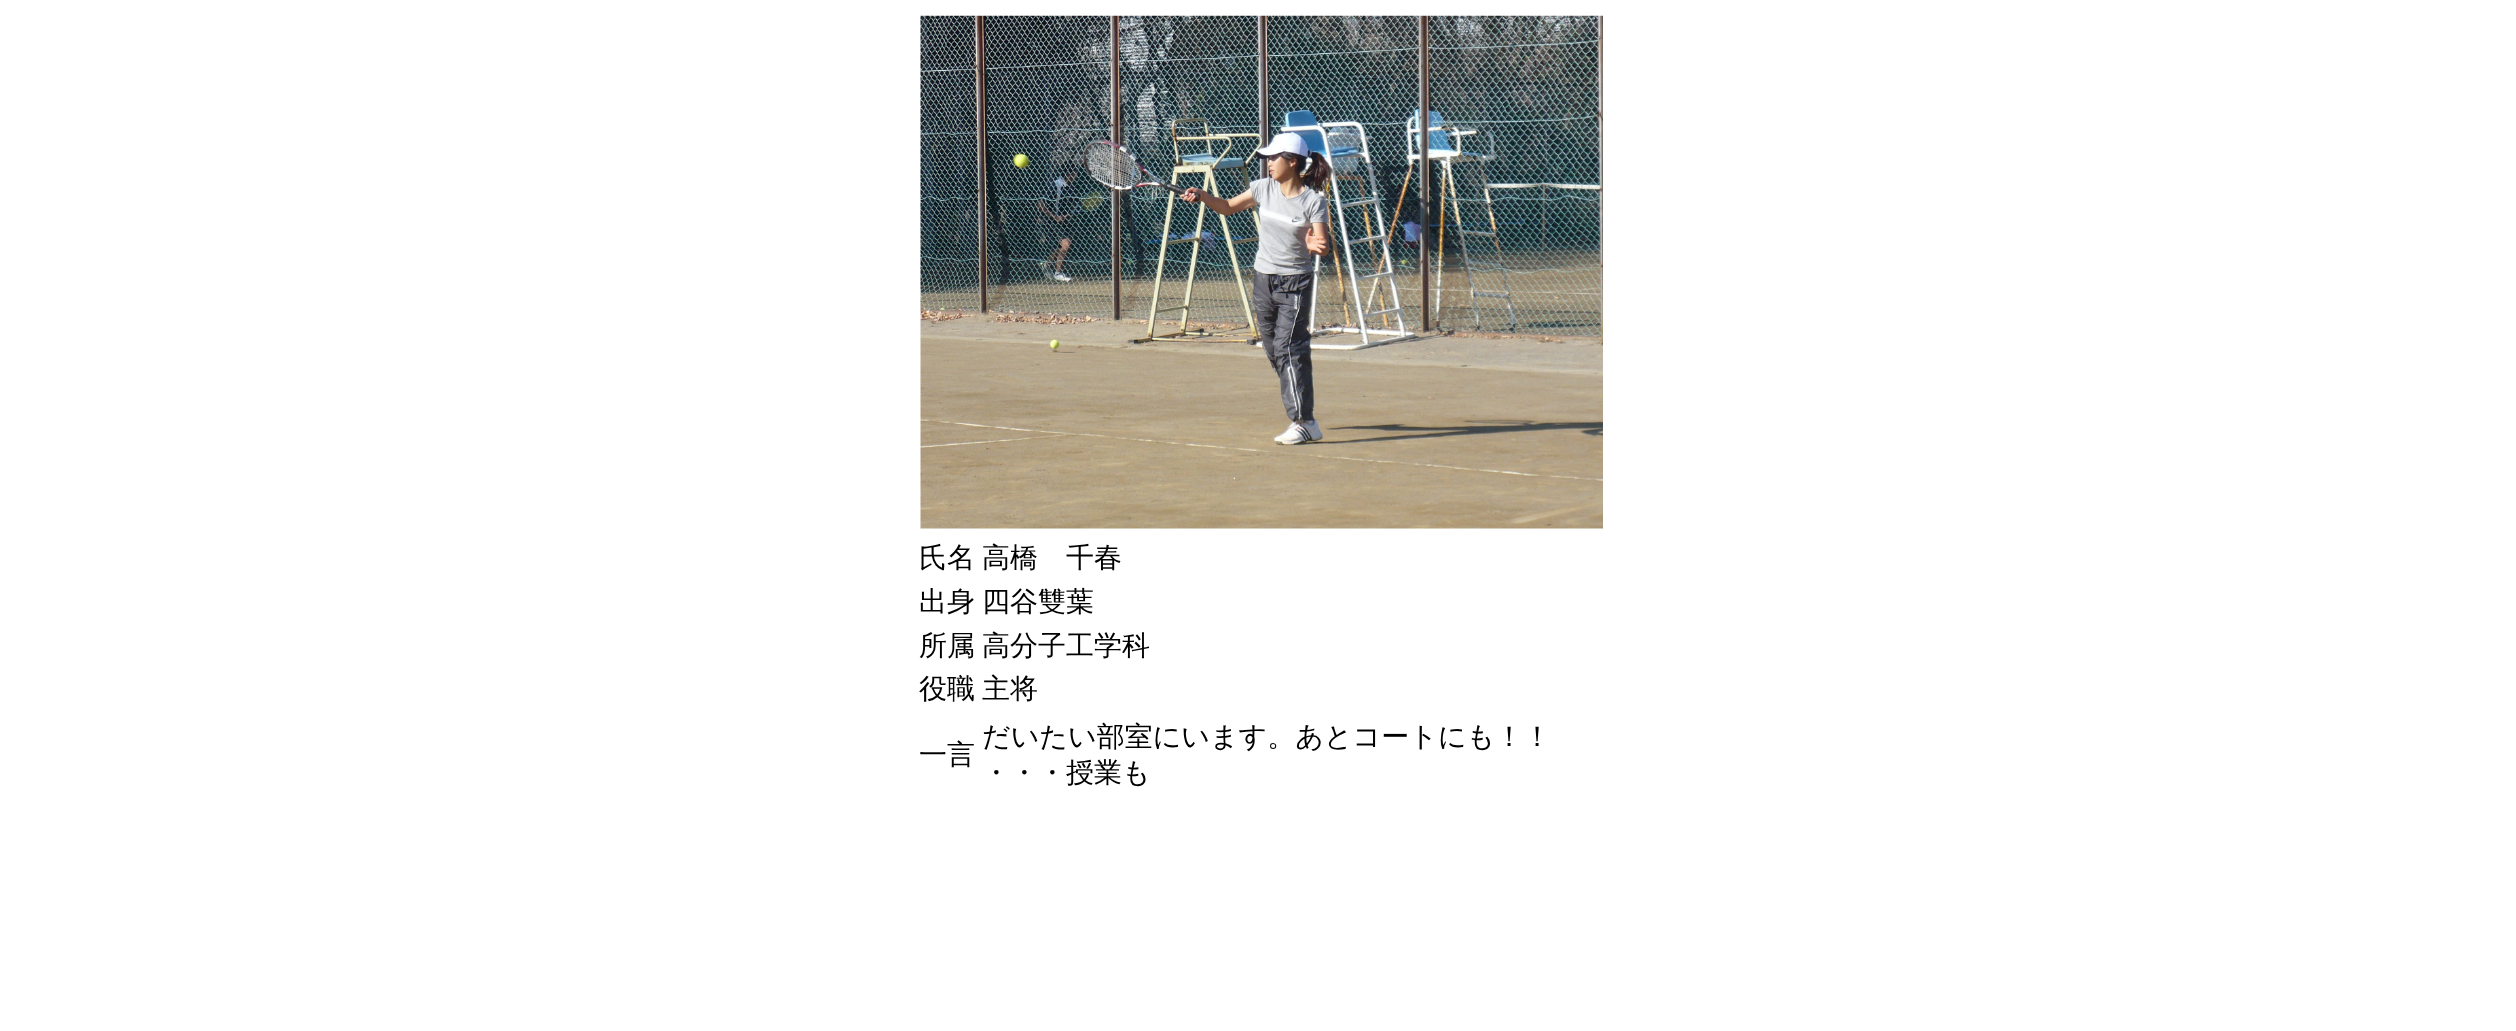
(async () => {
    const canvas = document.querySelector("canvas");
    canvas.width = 2516;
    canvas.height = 1031;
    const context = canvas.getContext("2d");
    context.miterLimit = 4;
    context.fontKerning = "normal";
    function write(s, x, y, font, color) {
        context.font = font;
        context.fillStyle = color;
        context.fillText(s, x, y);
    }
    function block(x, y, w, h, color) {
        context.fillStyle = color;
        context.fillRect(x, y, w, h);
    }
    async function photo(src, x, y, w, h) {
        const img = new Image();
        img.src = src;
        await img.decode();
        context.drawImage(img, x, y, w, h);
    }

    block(0, 0, 2516, 1031, "rgb(255, 255, 255)");
    await photo("media/1.png", 920, 15, 683, 514);
    write("氏名", 919, 567, "500 28px WenQuanYi Zen Hei", "rgb(0, 0, 0)");
    write("高橋　千春", 982, 567, "500 28px WenQuanYi Zen Hei", "rgb(0, 0, 0)");
    write("出身", 919, 611, "500 28px WenQuanYi Zen Hei", "rgb(0, 0, 0)");
    write("四谷雙葉", 982, 611, "500 28px WenQuanYi Zen Hei", "rgb(0, 0, 0)");
    write("所属", 919, 655, "500 28px WenQuanYi Zen Hei", "rgb(0, 0, 0)");
    write("高分子工学科", 982, 655, "500 28px WenQuanYi Zen Hei", "rgb(0, 0, 0)");
    write("役職", 919, 698, "500 28px WenQuanYi Zen Hei", "rgb(0, 0, 0)");
    write("主将", 982, 698, "500 28px WenQuanYi Zen Hei", "rgb(0, 0, 0)");
    write("一言", 919, 764, "500 28px WenQuanYi Zen Hei", "rgb(0, 0, 0)");
    write("だいたい部室にいます。あとコートにも！！", 982, 746, "500 28px WenQuanYi Zen Hei", "rgb(0, 0, 0)");
    write("・・・授業も", 982, 782, "500 28px WenQuanYi Zen Hei", "rgb(0, 0, 0)");
})();
